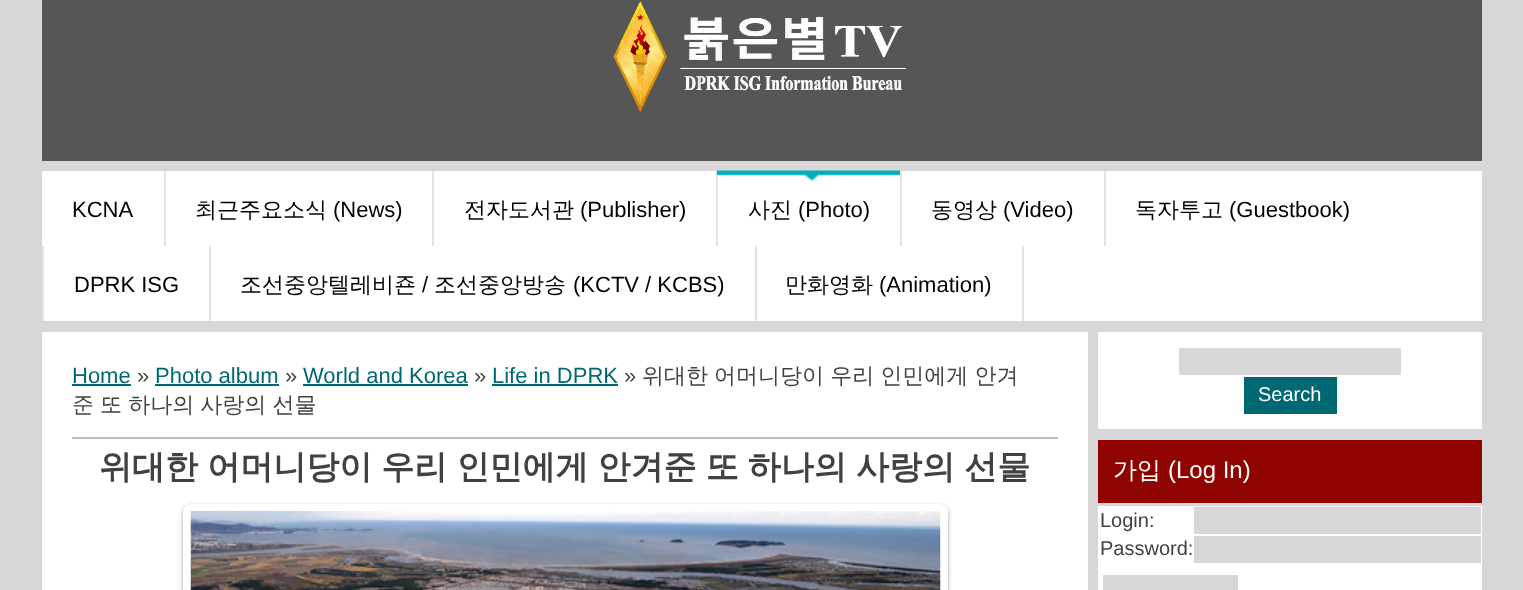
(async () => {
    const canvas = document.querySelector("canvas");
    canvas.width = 1523;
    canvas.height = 590;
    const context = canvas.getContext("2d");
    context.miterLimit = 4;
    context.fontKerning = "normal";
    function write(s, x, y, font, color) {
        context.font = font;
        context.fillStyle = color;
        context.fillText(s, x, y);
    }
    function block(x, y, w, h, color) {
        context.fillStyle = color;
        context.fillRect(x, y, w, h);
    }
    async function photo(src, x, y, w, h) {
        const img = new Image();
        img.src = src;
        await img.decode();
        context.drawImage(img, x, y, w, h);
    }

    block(0, 0, 1523, 590, "rgb(215, 215, 215)");
    block(42, 0, 1440, 161, "rgb(86, 86, 86)");
    await photo("media/1.png", 613, 1, 293, 111);
    block(42, 171, 1440, 150, "rgb(255, 255, 255)");
    write("KCNA", 72, 217, "22px Liberation Sans", "rgb(0, 0, 0)");
    block(164, 171, 2, 75, "rgb(227, 227, 227)");
    write("최근주요소식", 195, 217, "500 22px WenQuanYi Zen Hei", "rgb(0, 0, 0)");
    write("(News)", 333, 217, "22px Liberation Sans", "rgb(0, 0, 0)");
    block(432, 171, 2, 75, "rgb(227, 227, 227)");
    write("전자도서관", 464, 217, "500 22px WenQuanYi Zen Hei", "rgb(0, 0, 0)");
    write("(Publisher)", 580, 217, "22px Liberation Sans", "rgb(0, 0, 0)");
    block(716, 171, 2, 75, "rgb(227, 227, 227)");
    await photo("media/2.png", 717, 170, 183, 12);
    write("사진", 748, 217, "500 22px WenQuanYi Zen Hei", "rgb(0, 0, 0)");
    write("(Photo)", 798, 217, "22px Liberation Sans", "rgb(0, 0, 0)");
    block(900, 171, 2, 75, "rgb(227, 227, 227)");
    write("동영상", 931, 217, "500 22px WenQuanYi Zen Hei", "rgb(0, 0, 0)");
    write("(Video)", 1003, 217, "22px Liberation Sans", "rgb(0, 0, 0)");
    block(1104, 171, 2, 75, "rgb(227, 227, 227)");
    write("독자투고", 1135, 217, "500 22px WenQuanYi Zen Hei", "rgb(0, 0, 0)");
    write("(Guestbook)", 1229, 217, "22px Liberation Sans", "rgb(0, 0, 0)");
    block(42, 246, 2, 75, "rgb(227, 227, 227)");
    write("DPRK ISG", 74, 292, "22px Liberation Sans", "rgb(0, 0, 0)");
    block(209, 246, 2, 75, "rgb(227, 227, 227)");
    write("조선중앙텔레비죤", 240, 292, "500 22px WenQuanYi Zen Hei", "rgb(0, 0, 0)");
    write("/", 422, 292, "22px Liberation Sans", "rgb(0, 0, 0)");
    write("조선중앙방송", 434, 292, "500 22px WenQuanYi Zen Hei", "rgb(0, 0, 0)");
    write("(KCTV / KCBS)", 573, 292, "22px Liberation Sans", "rgb(0, 0, 0)");
    block(1022, 246, 2, 75, "rgb(227, 227, 227)");
    block(755, 246, 2, 75, "rgb(227, 227, 227)");
    write("만화영화", 785, 292, "500 22px WenQuanYi Zen Hei", "rgb(0, 0, 0)");
    write("(Animation)", 879, 292, "22px Liberation Sans", "rgb(0, 0, 0)");
    block(42, 332, 1046, 258, "rgb(255, 255, 255)");
    write("Home", 72, 383, "22px Liberation Sans", "rgb(0, 104, 114)");
    block(72, 384, 59, 2, "rgb(0, 104, 114)");
    write("»", 137, 383, "22px Liberation Sans", "rgb(65, 65, 65)");
    write("Photo album", 155, 383, "22px Liberation Sans", "rgb(0, 104, 114)");
    block(155, 384, 124, 2, "rgb(0, 104, 114)");
    write("»", 285, 383, "22px Liberation Sans", "rgb(65, 65, 65)");
    write("World and Korea", 303, 383, "22px Liberation Sans", "rgb(0, 104, 114)");
    block(303, 384, 165, 2, "rgb(0, 104, 114)");
    write("»", 474, 383, "22px Liberation Sans", "rgb(65, 65, 65)");
    write("Life in DPRK", 492, 383, "22px Liberation Sans", "rgb(0, 104, 114)");
    block(492, 384, 126, 2, "rgb(0, 104, 114)");
    write("»", 624, 383, "22px Liberation Sans", "rgb(65, 65, 65)");
    context.wordSpacing = "-0.5px";
    write("위대한 어머니당이 우리 인민에게 안겨", 642, 383, "500 22px WenQuanYi Zen Hei", "rgb(65, 65, 65)");
    write("준 또 하나의 사랑의 선물", 72, 412, "500 22px WenQuanYi Zen Hei", "rgb(65, 65, 65)");
    block(72, 437, 986, 2, "rgb(191, 191, 191)");
    context.wordSpacing = "-0.75px";
    write("위대한 어머니당이 우리 인민에게 안겨준 또 하나의 사랑의 선물", 99, 478, "bold 33px WenQuanYi Zen Hei", "rgb(65, 65, 65)");
    context.save();
    context.beginPath();
    context.moveTo(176, 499);
    context.lineTo(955, 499);
    context.lineTo(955, 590);
    context.lineTo(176, 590);
    context.closePath();
    context.moveTo(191, 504);
    context.lineTo(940, 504);
    context.bezierCurveTo(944.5, 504, 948, 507.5, 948, 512);
    context.lineTo(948, 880);
    context.bezierCurveTo(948, 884.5, 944.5, 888, 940, 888);
    context.lineTo(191, 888);
    context.bezierCurveTo(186.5, 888, 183, 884.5, 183, 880);
    context.lineTo(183, 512);
    context.bezierCurveTo(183, 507.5, 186.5, 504, 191, 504);
    context.closePath();
    context.clip("evenodd");
    context.fillStyle = "rgba(0, 0, 0, 0.37)";
    context.filter = "blur(2px)";
    context.beginPath();
    context.roundRect(183, 506, 765, 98, 8);
    context.fill();
    context.filter = "none";
    context.restore();
    await photo("media/3.png", 190, 511, 751, 79);
    block(1098, 332, 384, 97, "rgb(255, 255, 255)");
    block(1179, 348, 222, 27, "rgb(215, 215, 215)");
    block(1244, 377, 93, 37, "rgb(0, 104, 114)");
    context.wordSpacing = "0px";
    write("Search", 1258, 401, "20px Liberation Sans", "rgb(255, 255, 255)");
    block(1098, 440, 384, 63, "rgb(143, 3, 0)");
    write("가입", 1113, 478, "500 24px WenQuanYi Zen Hei", "rgb(255, 255, 255)");
    write("(Log In)", 1168, 478, "24px Liberation Sans", "rgb(255, 255, 255)");
    block(1098, 506, 384, 84, "rgb(255, 255, 255)");
    write("Login:", 1100, 527, "20px Liberation Sans", "rgb(65, 65, 65)");
    block(1194, 507, 287, 27, "rgb(215, 215, 215)");
    write("Password:", 1100, 555, "20px Liberation Sans", "rgb(65, 65, 65)");
    block(1194, 536, 287, 27, "rgb(215, 215, 215)");
    block(1103, 575, 135, 15, "rgb(215, 215, 215)");
})();
